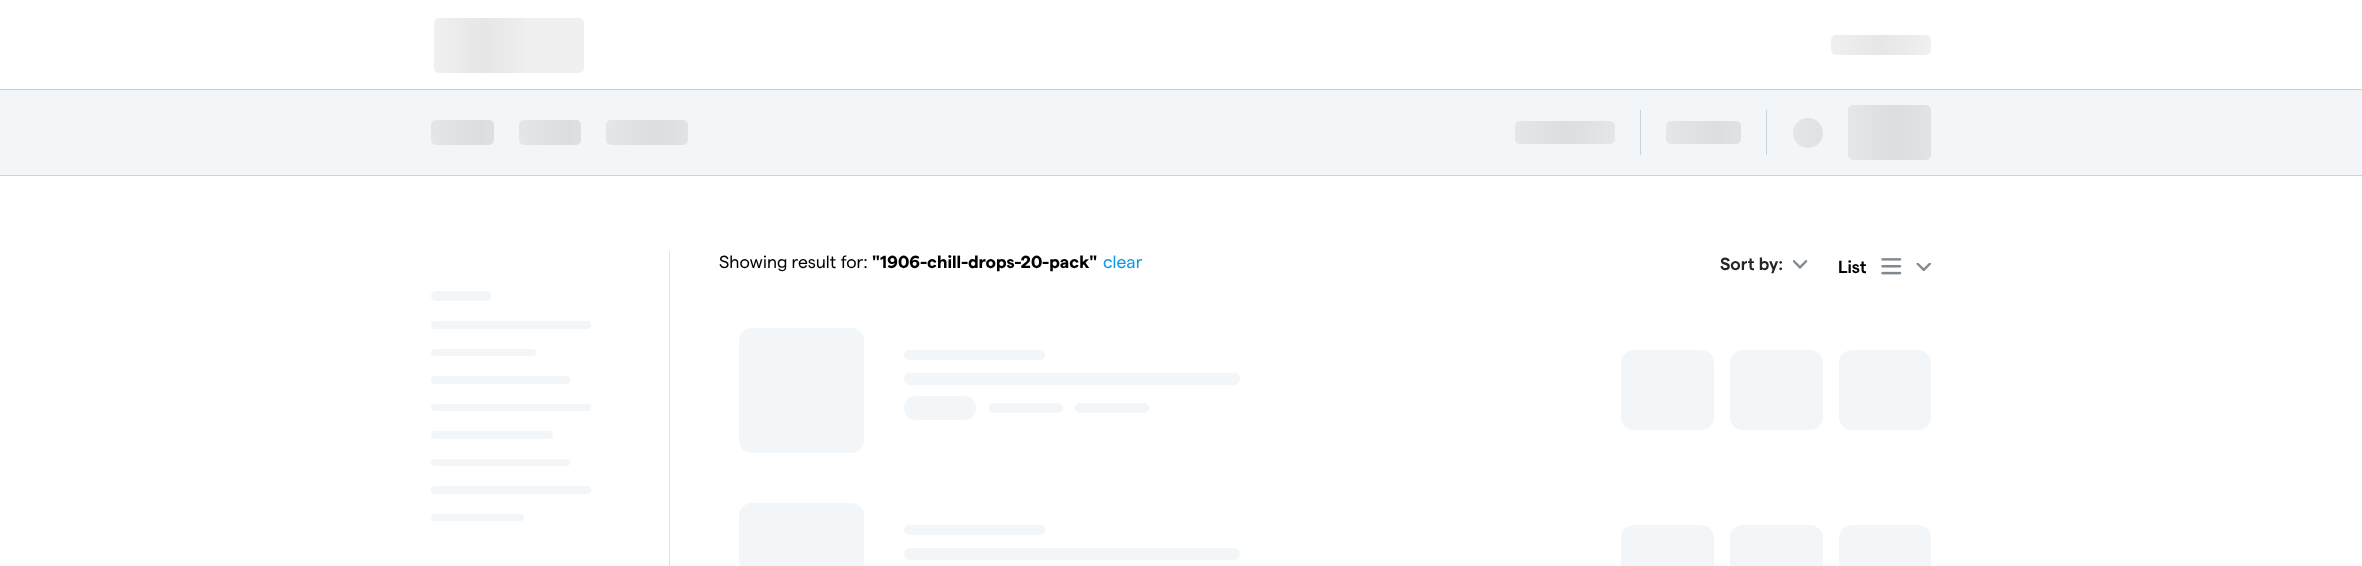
(async () => {
    const canvas = document.querySelector("canvas");
    canvas.width = 2362;
    canvas.height = 566;
    const context = canvas.getContext("2d");
    context.miterLimit = 4;
    context.fontKerning = "normal";
    function write(s, x, y, font, color) {
        context.font = font;
        context.fillStyle = color;
        context.fillText(s, x, y);
    }
    function block(x, y, w, h, color) {
        context.fillStyle = color;
        context.fillRect(x, y, w, h);
    }
    function card(x, y, w, h, r, color) {
        context.fillStyle = color;
        context.beginPath();
        context.roundRect(x, y, w, h, r);
        context.fill();
    }
    async function photo(src, x, y, w, h) {
        const img = new Image();
        img.src = src;
        await img.decode();
        context.drawImage(img, x, y, w, h);
    }
    let gradient;

    block(0, 0, 2362, 566, "rgb(255, 255, 255)");
    block(0, 89, 2362, 1, "rgb(197, 208, 215)");
    gradient = context.createLinearGradient(434, 45, 684, 45);
    gradient.addColorStop(0, "rgb(240, 240, 240)");
    gradient.addColorStop(0.2, "rgb(230, 230, 230)");
    gradient.addColorStop(0.4, "rgb(240, 240, 240)");
    context.fillStyle = gradient;
    context.beginPath();
    context.roundRect(434, 18, 150, 55, 5);
    context.fill();
    gradient = context.createLinearGradient(1831, 45, 2081, 45);
    gradient.addColorStop(0, "rgb(240, 240, 240)");
    gradient.addColorStop(0.2, "rgb(230, 230, 230)");
    gradient.addColorStop(0.4, "rgb(240, 240, 240)");
    context.fillStyle = gradient;
    context.beginPath();
    context.roundRect(1831, 35, 100, 20, 5);
    context.fill();
    block(0, 90, 2362, 85, "rgb(243, 246, 248)");
    block(0, 175, 2362, 1, "rgb(200, 210, 219)");
    gradient = context.createLinearGradient(431, 133, 681, 133);
    gradient.addColorStop(0, "rgb(228, 231, 233)");
    gradient.addColorStop(0.2, "rgb(219, 221, 223)");
    gradient.addColorStop(0.4, "rgb(228, 231, 233)");
    context.fillStyle = gradient;
    context.beginPath();
    context.roundRect(431, 120, 63, 25, 5);
    context.fill();
    gradient = context.createLinearGradient(519, 133, 769, 133);
    gradient.addColorStop(0, "rgb(228, 231, 233)");
    gradient.addColorStop(0.2, "rgb(219, 221, 223)");
    gradient.addColorStop(0.4, "rgb(228, 231, 233)");
    context.fillStyle = gradient;
    context.beginPath();
    context.roundRect(519, 120, 62, 25, 5);
    context.fill();
    gradient = context.createLinearGradient(606, 133, 856, 133);
    gradient.addColorStop(0, "rgb(228, 231, 233)");
    gradient.addColorStop(0.2, "rgb(219, 221, 223)");
    gradient.addColorStop(0.4, "rgb(228, 231, 233)");
    context.fillStyle = gradient;
    context.beginPath();
    context.roundRect(606, 120, 82, 25, 5);
    context.fill();
    gradient = context.createLinearGradient(1515, 133, 1765, 133);
    gradient.addColorStop(0, "rgb(228, 231, 233)");
    gradient.addColorStop(0.2, "rgb(219, 221, 223)");
    gradient.addColorStop(0.4, "rgb(228, 231, 233)");
    context.fillStyle = gradient;
    context.beginPath();
    context.roundRect(1515, 121, 100, 23, 5);
    context.fill();
    block(1640, 110, 1, 45, "rgb(200, 210, 219)");
    gradient = context.createLinearGradient(1666, 133, 1916, 133);
    gradient.addColorStop(0, "rgb(228, 231, 233)");
    gradient.addColorStop(0.2, "rgb(219, 221, 223)");
    gradient.addColorStop(0.4, "rgb(228, 231, 233)");
    context.fillStyle = gradient;
    context.beginPath();
    context.roundRect(1666, 121, 75, 23, 5);
    context.fill();
    block(1766, 110, 1, 45, "rgb(200, 210, 219)");
    gradient = context.createLinearGradient(1793, 133, 2043, 133);
    gradient.addColorStop(0, "rgb(228, 231, 233)");
    gradient.addColorStop(0.2, "rgb(219, 221, 223)");
    gradient.addColorStop(0.4, "rgb(228, 231, 233)");
    context.fillStyle = gradient;
    context.beginPath();
    context.arc(1808, 133, 15, 0, Math.PI * 2);
    context.fill();
    gradient = context.createLinearGradient(1848, 133, 2098, 133);
    gradient.addColorStop(0, "rgb(228, 231, 233)");
    gradient.addColorStop(0.2, "rgb(219, 221, 223)");
    gradient.addColorStop(0.4, "rgb(228, 231, 233)");
    context.fillStyle = gradient;
    context.beginPath();
    context.roundRect(1848, 105, 83, 55, 5);
    context.fill();
    block(669, 251, 1, 315, "rgb(215, 228, 235)");
    card(431, 291, 60, 10, 5, "rgb(242, 246, 248)");
    card(431, 321, 160, 8, 4, "rgb(242, 246, 248)");
    card(431, 349, 105, 7, 3.5, "rgb(242, 246, 248)");
    card(431, 376, 139, 8, 4, "rgb(242, 246, 248)");
    card(431, 404, 160, 7, 3.5, "rgb(242, 246, 248)");
    card(431, 431, 122, 8, 4, "rgb(242, 246, 248)");
    card(431, 459, 139, 7, 3.5, "rgb(242, 246, 248)");
    card(431, 486, 160, 8, 4, "rgb(242, 246, 248)");
    card(431, 514, 93, 7, 3.5, "rgb(242, 246, 248)");
    write("Showing result for:", 719, 268, "17.5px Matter", "rgb(0, 0, 0)");
    write("\"1906-chill-drops-20-pack\"", 872, 268, "bold 17.5px Matter", "rgb(0, 0, 0)");
    write("clear", 1103, 268, "17.5px Matter", "rgb(11, 153, 230)");
    write("Sort by:", 1720, 270, "600 17.5px Matter", "rgb(36, 37, 38)");
    await photo("media/1.png", 1793, 260, 15, 9);
    write("List", 1838, 273, "600 17.5px Matter", "rgb(0, 0, 0)");
    await photo("media/2.png", 1881, 258, 21, 17);
    await photo("media/3.png", 1916, 263, 15, 8);
    card(739, 328, 125, 125, 13, "rgb(242, 246, 248)");
    card(904, 350, 141, 10, 5, "rgb(242, 246, 248)");
    card(904, 373, 336, 12, 6, "rgb(242, 246, 248)");
    card(904, 396, 72, 24, 12, "rgb(242, 246, 248)");
    card(989, 403, 74, 10, 5, "rgb(242, 246, 248)");
    card(1075, 403, 74, 10, 5, "rgb(242, 246, 248)");
    card(1621, 350, 93, 80, 13, "rgb(242, 246, 248)");
    card(1730, 350, 93, 80, 13, "rgb(242, 246, 248)");
    card(1839, 350, 92, 80, 13, "rgb(242, 246, 248)");
    card(739, 503, 125, 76, 13, "rgb(242, 246, 248)");
    card(904, 525, 141, 10, 5, "rgb(242, 246, 248)");
    card(904, 548, 336, 12, 6, "rgb(242, 246, 248)");
    card(1621, 525, 93, 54, 13, "rgb(242, 246, 248)");
    card(1730, 525, 93, 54, 13, "rgb(242, 246, 248)");
    card(1839, 525, 92, 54, 13, "rgb(242, 246, 248)");
})();
